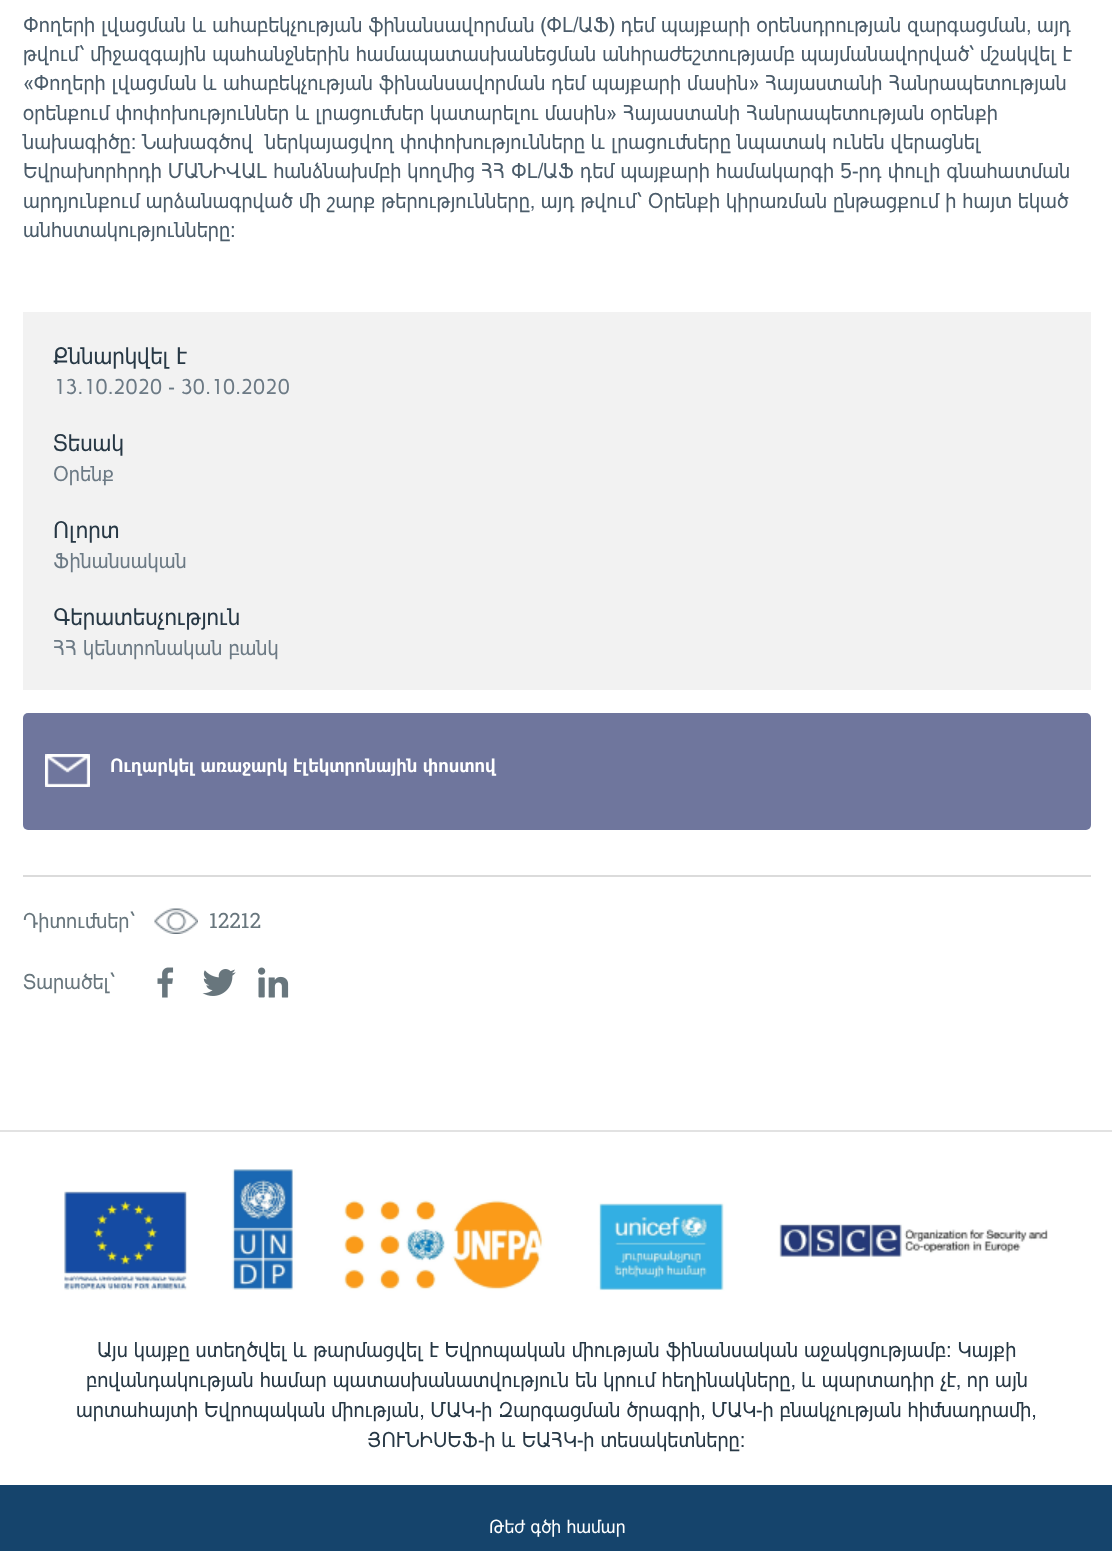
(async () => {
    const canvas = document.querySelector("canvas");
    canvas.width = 1112;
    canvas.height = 1551;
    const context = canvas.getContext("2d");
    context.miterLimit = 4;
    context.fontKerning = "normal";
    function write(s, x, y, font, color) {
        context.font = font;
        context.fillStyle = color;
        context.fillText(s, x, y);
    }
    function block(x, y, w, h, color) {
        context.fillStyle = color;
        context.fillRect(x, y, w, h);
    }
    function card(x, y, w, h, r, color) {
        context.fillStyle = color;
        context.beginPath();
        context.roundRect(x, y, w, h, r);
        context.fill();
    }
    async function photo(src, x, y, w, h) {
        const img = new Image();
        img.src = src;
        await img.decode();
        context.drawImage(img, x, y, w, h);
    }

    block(0, 0, 1112, 1551, "rgb(255, 255, 255)");
    block(23, 875, 1068, 2, "rgb(219, 219, 219)");
    write("Փողերի լվացման և ահաբեկչության ֆինանսավորման (ՓԼ/ԱՖ) դեմ պայքարի օրենսդրության զարգացման, այդ", 23, 32, "21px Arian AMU", "rgb(75, 92, 106)");
    write("թվում՝ միջազգային պահանջներին համապատասխանեցման անհրաժեշտությամբ պայմանավորված՝ մշակվել է", 23, 61, "21px Arian AMU", "rgb(75, 92, 106)");
    write("«Փողերի լվացման և ահաբեկչության ֆինանսավորման դեմ պայքարի մասին» Հայաստանի Հանրապետության", 23, 90, "21px Arian AMU", "rgb(75, 92, 106)");
    write("օրենքում փոփոխություններ և լրացումներ կատարելու մասին» Հայաստանի Հանրապետության օրենքի", 23, 120, "21px Arian AMU", "rgb(75, 92, 106)");
    write("նախագիծը։ Նախագծով  ներկայացվող փոփոխությունները և լրացումները նպատակ ունեն վերացնել", 23, 149, "21px Arian AMU", "rgb(75, 92, 106)");
    write("Եվրախորհրդի ՄԱՆԻՎԱԼ հանձնախմբի կողմից ՀՀ ՓԼ/ԱՖ դեմ պայքարի համակարգի 5-րդ փուլի գնահատման", 23, 178, "21px Arian AMU", "rgb(75, 92, 106)");
    write("արդյունքում արձանագրված մի շարք թերությունները, այդ թվում՝ Օրենքի կիրառման ընթացքում ի հայտ եկած", 23, 208, "21px Arian AMU", "rgb(75, 92, 106)");
    write("անհստակությունները։", 23, 237, "21px Arian AMU", "rgb(75, 92, 106)");
    block(23, 312, 1068, 378, "rgb(242, 242, 242)");
    write("Քննարկվել է", 53, 364, "23.5px Arian AMU", "rgb(39, 56, 69)");
    write("13.10.2020 - 30.10.2020", 53, 394, "21px Arian AMU", "rgb(108, 122, 133)");
    write("Տեսակ", 53, 451, "23.5px Arian AMU", "rgb(39, 56, 69)");
    write("Օրենք", 53, 481, "21px Arian AMU", "rgb(108, 122, 133)");
    write("Ոլորտ", 53, 538, "23.5px Arian AMU", "rgb(39, 56, 69)");
    write("Ֆինանսական", 53, 568, "21px Arian AMU", "rgb(108, 122, 133)");
    write("Գերատեսչություն", 53, 625, "23.5px Arian AMU", "rgb(39, 56, 69)");
    write("ՀՀ կենտրոնական բանկ", 53, 655, "21px Arian AMU", "rgb(108, 122, 133)");
    card(23, 713, 1068, 117, 5, "rgb(111, 118, 157)");
    await photo("media/1.png", 45, 754, 45, 33);
    write("Ուղարկել առաջարկ էլեկտրոնային փոստով", 110, 772, "bold 18.9px Arian AMU", "rgb(255, 255, 255)");
    write("Դիտումներ`", 23, 928, "21px Arian AMU", "rgb(104, 118, 125)");
    await photo("media/2.png", 154, 908, 44, 26);
    write("12212", 209, 928, "21px Roboto Slab", "rgb(104, 118, 125)");
    write("Տարածել`", 23, 989, "21px Arian AMU", "rgb(104, 118, 125)");
    await photo("media/3.png", 157, 967, 17, 31);
    await photo("media/4.png", 202, 969, 34, 27);
    await photo("media/5.png", 258, 967, 31, 31);
    block(0, 1130, 1112, 2, "rgb(226, 226, 226)");
    await photo("media/6.png", 64, 1169, 984, 122);
    write("Այս կայքը ստեղծվել և թարմացվել է Եվրոպական միության ֆինանսական աջակցությամբ: Կայքի", 97, 1357, "21px Arian AMU", "rgb(39, 56, 69)");
    write("բովանդակության համար պատասխանատվություն են կրում հեղինակները, և պարտադիր չէ, որ այն", 86, 1387, "21px Arian AMU", "rgb(39, 56, 69)");
    write("արտահայտի Եվրոպական միության, ՄԱԿ-ի Զարգացման ծրագրի, ՄԱԿ-ի բնակչության հիմնադրամի,", 76, 1417, "21px Arian AMU", "rgb(39, 56, 69)");
    write("ՅՈՒՆԻՍԵՖ-ի և ԵԱՀԿ-ի տեսակետները:", 367, 1447, "21px Arian AMU", "rgb(39, 56, 69)");
    block(0, 1485, 1112, 66, "rgb(21, 68, 108)");
    write("Թեժ գծի համար", 489, 1533, "18.5px Arian AMU", "rgb(255, 255, 255)");
})();
